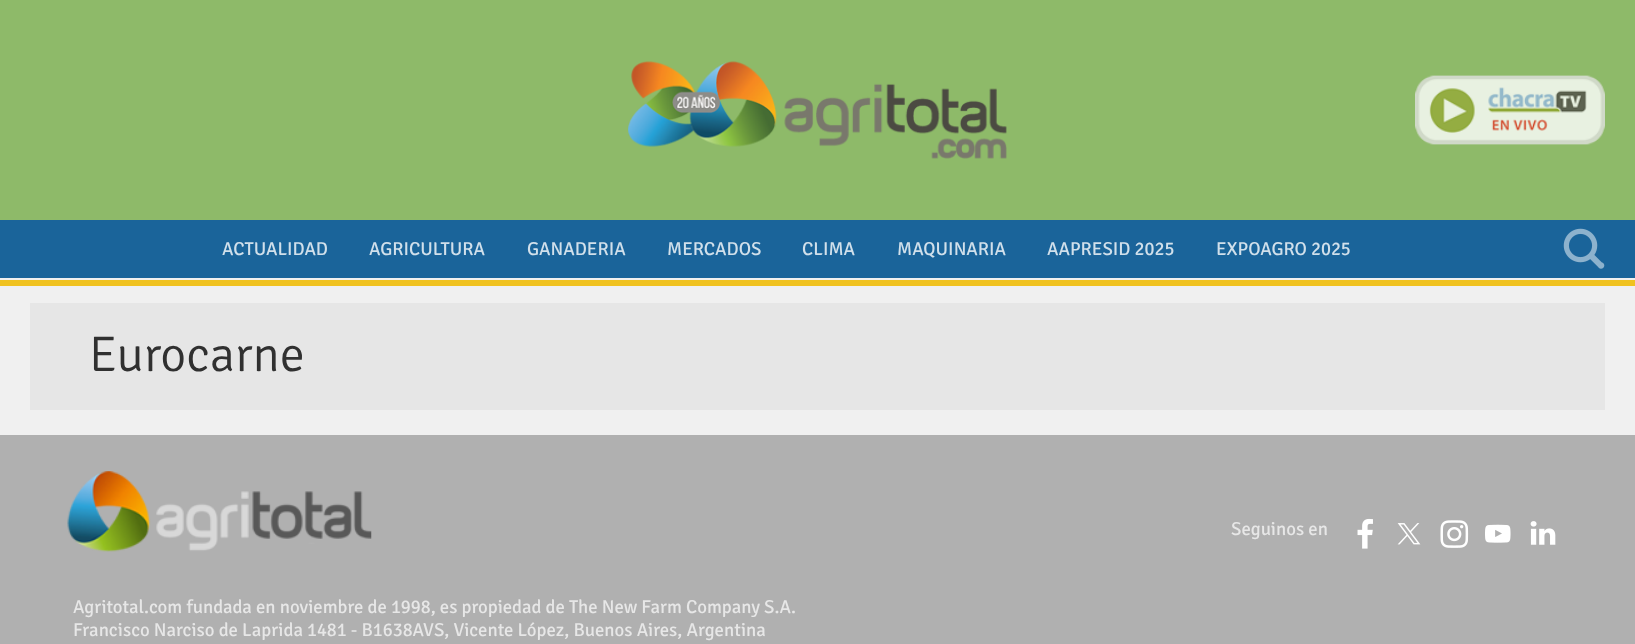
(async () => {
    const canvas = document.querySelector("canvas");
    canvas.width = 1635;
    canvas.height = 644;
    const context = canvas.getContext("2d");
    context.miterLimit = 4;
    context.fontKerning = "normal";
    function write(s, x, y, font, color) {
        context.font = font;
        context.fillStyle = color;
        context.fillText(s, x, y);
    }
    function block(x, y, w, h, color) {
        context.fillStyle = color;
        context.fillRect(x, y, w, h);
    }
    async function photo(src, x, y, w, h) {
        const img = new Image();
        img.src = src;
        await img.decode();
        context.drawImage(img, x, y, w, h);
    }

    block(0, 0, 1635, 644, "rgb(240, 240, 240)");
    block(0, 0, 1635, 220, "rgb(142, 186, 105)");
    await photo("media/1.png", 628, 61, 379, 98);
    await photo("media/2.png", 1415, 75, 190, 70);
    block(0, 220, 1635, 58, "rgb(26, 100, 154)");
    await photo("media/3.png", 1563, 228, 42, 41);
    write("ACTUALIDAD", 222, 255, "18.75px Signika", "rgb(209, 224, 235)");
    write("AGRICULTURA", 369, 255, "18.75px Signika", "rgb(209, 224, 235)");
    write("GANADERIA", 527, 255, "18.75px Signika", "rgb(209, 224, 235)");
    write("MERCADOS", 667, 255, "18.75px Signika", "rgb(209, 224, 235)");
    write("CLIMA", 802, 255, "18.75px Signika", "rgb(209, 224, 235)");
    write("MAQUINARIA", 897, 255, "18.75px Signika", "rgb(209, 224, 235)");
    write("AAPRESID 2025", 1047, 255, "18.75px Signika", "rgb(209, 224, 235)");
    write("EXPOAGRO 2025", 1216, 255, "18.75px Signika", "rgb(209, 224, 235)");
    block(0, 280, 1635, 6, "rgb(240, 194, 32)");
    block(30, 303, 1575, 107, "rgb(230, 230, 230)");
    write("Eurocarne", 89, 371, "300 50px Signika", "rgb(48, 48, 48)");
    block(0, 435, 1635, 209, "rgb(176, 176, 176)");
    await photo("media/4.png", 67, 471, 305, 81);
    write("Seguinos en", 1231, 535, "18.75px Signika", "rgb(231, 231, 231)");
    await photo("media/5.png", 1357, 518, 16, 31);
    await photo("media/6.png", 1397, 523, 24, 22);
    await photo("media/7.png", 1440, 520, 29, 28);
    await photo("media/8.png", 1485, 524, 26, 19);
    await photo("media/9.png", 1530, 521, 26, 24);
    write("Agritotal.com fundada en noviembre de 1998, es propiedad de The New Farm Company S.A.", 73, 613, "18.75px Signika", "rgb(231, 231, 231)");
    write("Francisco Narciso de Laprida 1481 - B1638AVS, Vicente López, Buenos Aires, Argentina", 73, 636, "18.75px Signika", "rgb(231, 231, 231)");
})();
